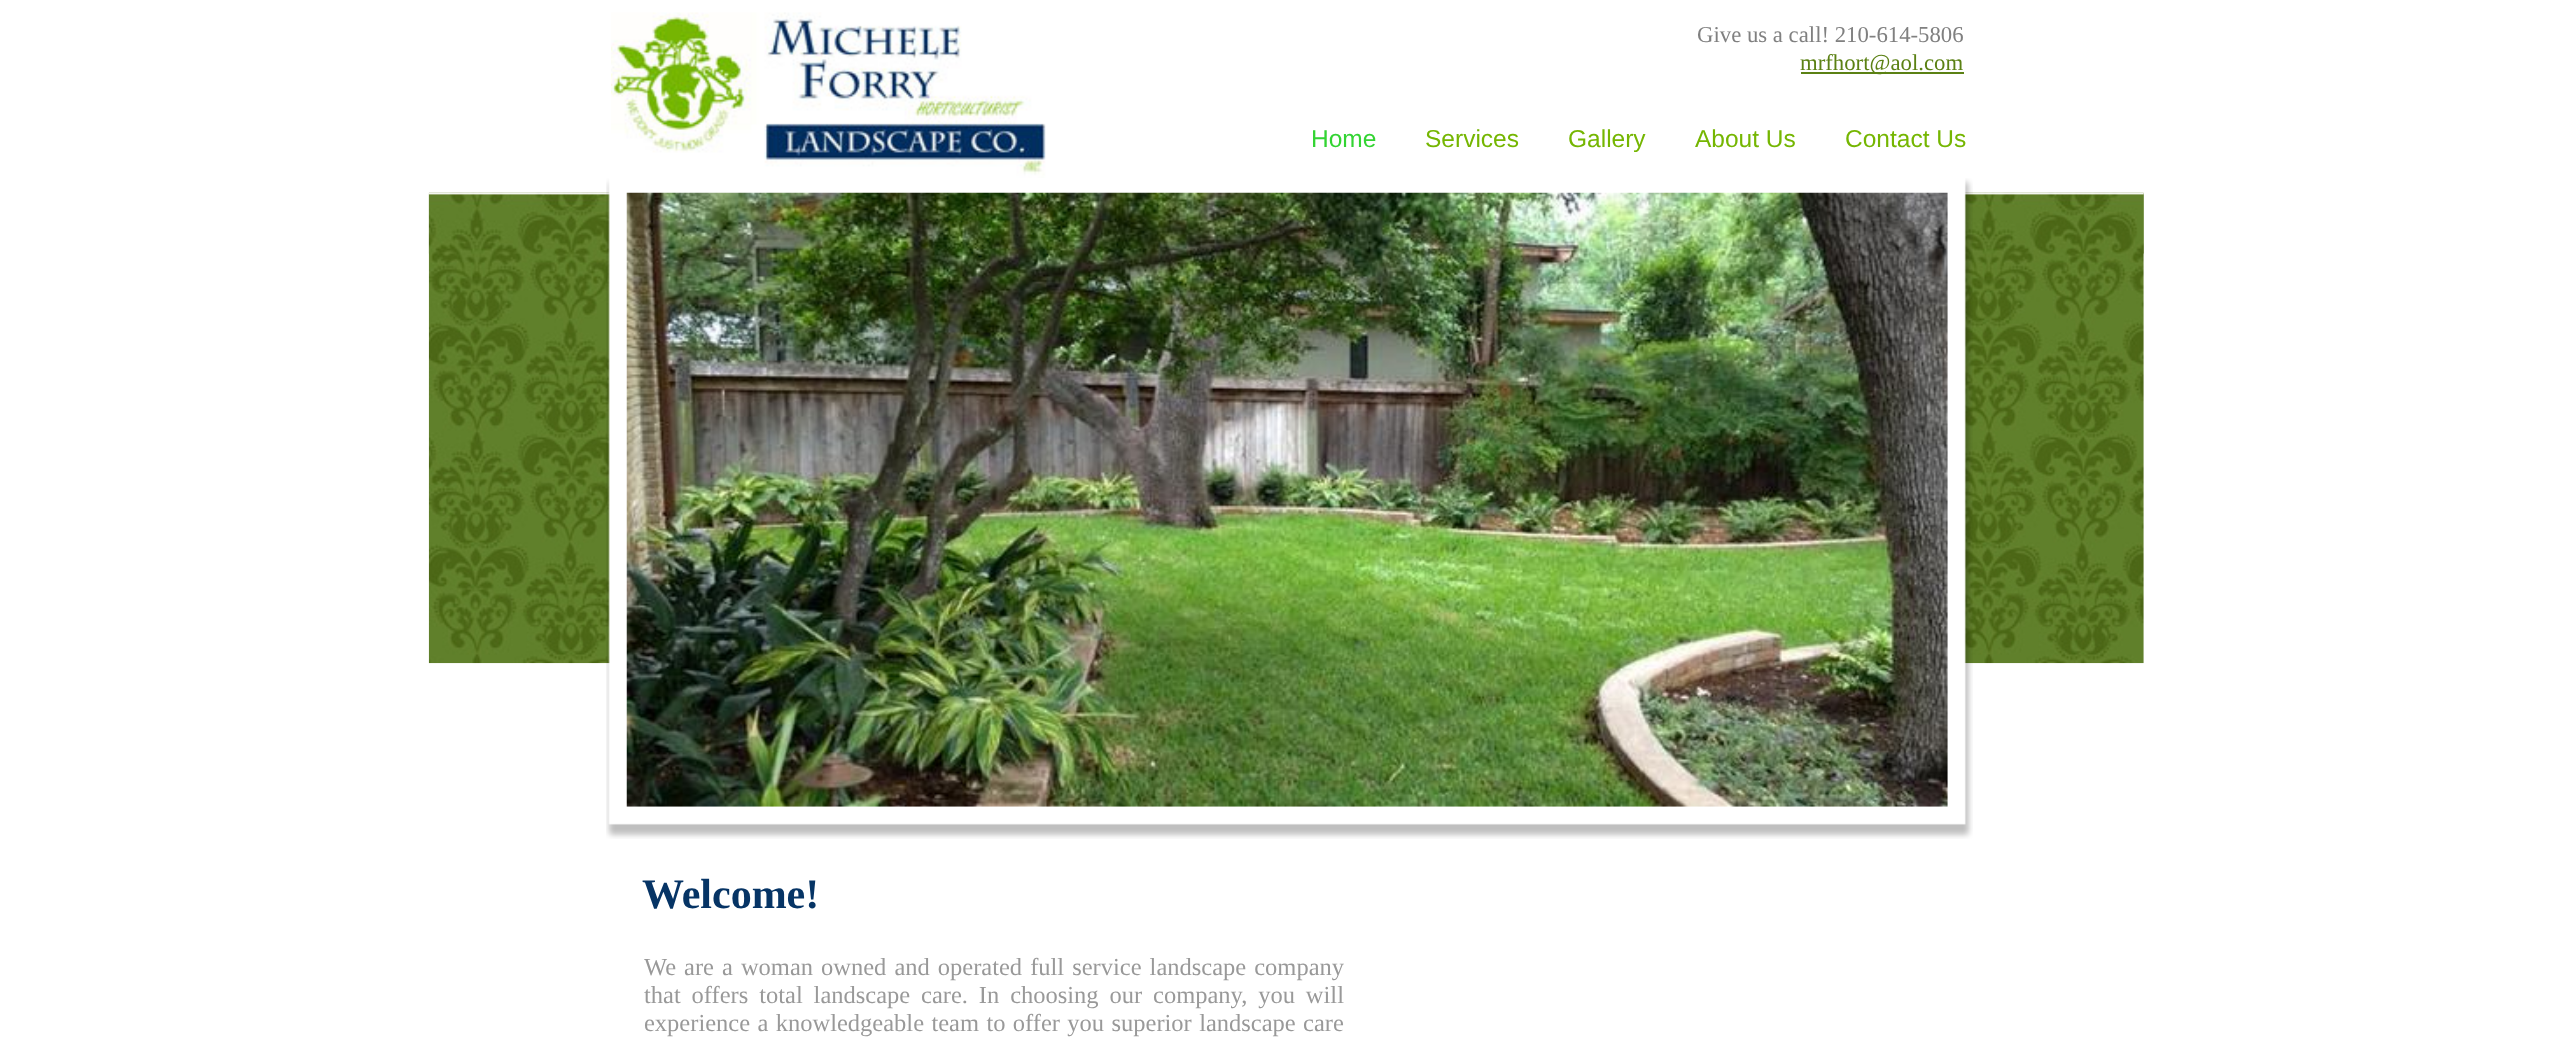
(async () => {
    const canvas = document.querySelector("canvas");
    canvas.width = 2571;
    canvas.height = 1054;
    const context = canvas.getContext("2d");
    context.miterLimit = 4;
    context.fontKerning = "normal";
    function write(s, x, y, font, color) {
        context.font = font;
        context.fillStyle = color;
        context.fillText(s, x, y);
    }
    function block(x, y, w, h, color) {
        context.fillStyle = color;
        context.fillRect(x, y, w, h);
    }
    async function photo(src, x, y, w, h) {
        const img = new Image();
        img.src = src;
        await img.decode();
        context.drawImage(img, x, y, w, h);
    }

    block(0, 0, 2571, 1054, "rgb(255, 255, 255)");
    await photo("media/1.png", 611, 12, 435, 166);
    write("Give us a call! 210-614-5806", 1697, 42, "22.75px Liberation Serif", "rgb(128, 128, 128)");
    block(1801, 72, 163, 2, "rgb(91, 129, 20)");
    write("mrfhort@aol.com", 1800, 70, "22.75px Liberation Serif", "rgb(91, 129, 20)");
    write("Home", 1311, 147, "24.5px Liberation Sans", "rgb(51, 212, 51)");
    write("Services", 1425, 147, "24.5px Liberation Sans", "rgb(117, 182, 2)");
    write("Gallery", 1568, 147, "24.5px Liberation Sans", "rgb(117, 182, 2)");
    write("About Us", 1695, 147, "24.5px Liberation Sans", "rgb(117, 182, 2)");
    write("Contact Us", 1845, 147, "24.5px Liberation Sans", "rgb(117, 182, 2)");
    await photo("media/3.png", 428, 192, 1716, 62);
    await photo("media/4.png", 428, 192, 1716, 472);
    await photo("media/2.png", 606, 178, 1367, 661);
    await photo("media/5.png", 626, 192, 1322, 615);
    write("Welcome!", 642, 908, "bold 42px Liberation Serif", "rgb(6, 52, 101)");
    context.wordSpacing = "1.9px";
    write("We are a woman owned and operated full service landscape company", 644, 975, "24.5px Liberation Serif", "rgb(153, 153, 153)");
    context.wordSpacing = "4.75px";
    write("that offers total landscape care. In choosing our company, you will", 644, 1003, "24.5px Liberation Serif", "rgb(153, 153, 153)");
    context.wordSpacing = "1.25px";
    write("experience a knowledgeable team to offer you superior landscape care", 644, 1031, "24.5px Liberation Serif", "rgb(153, 153, 153)");
})();
